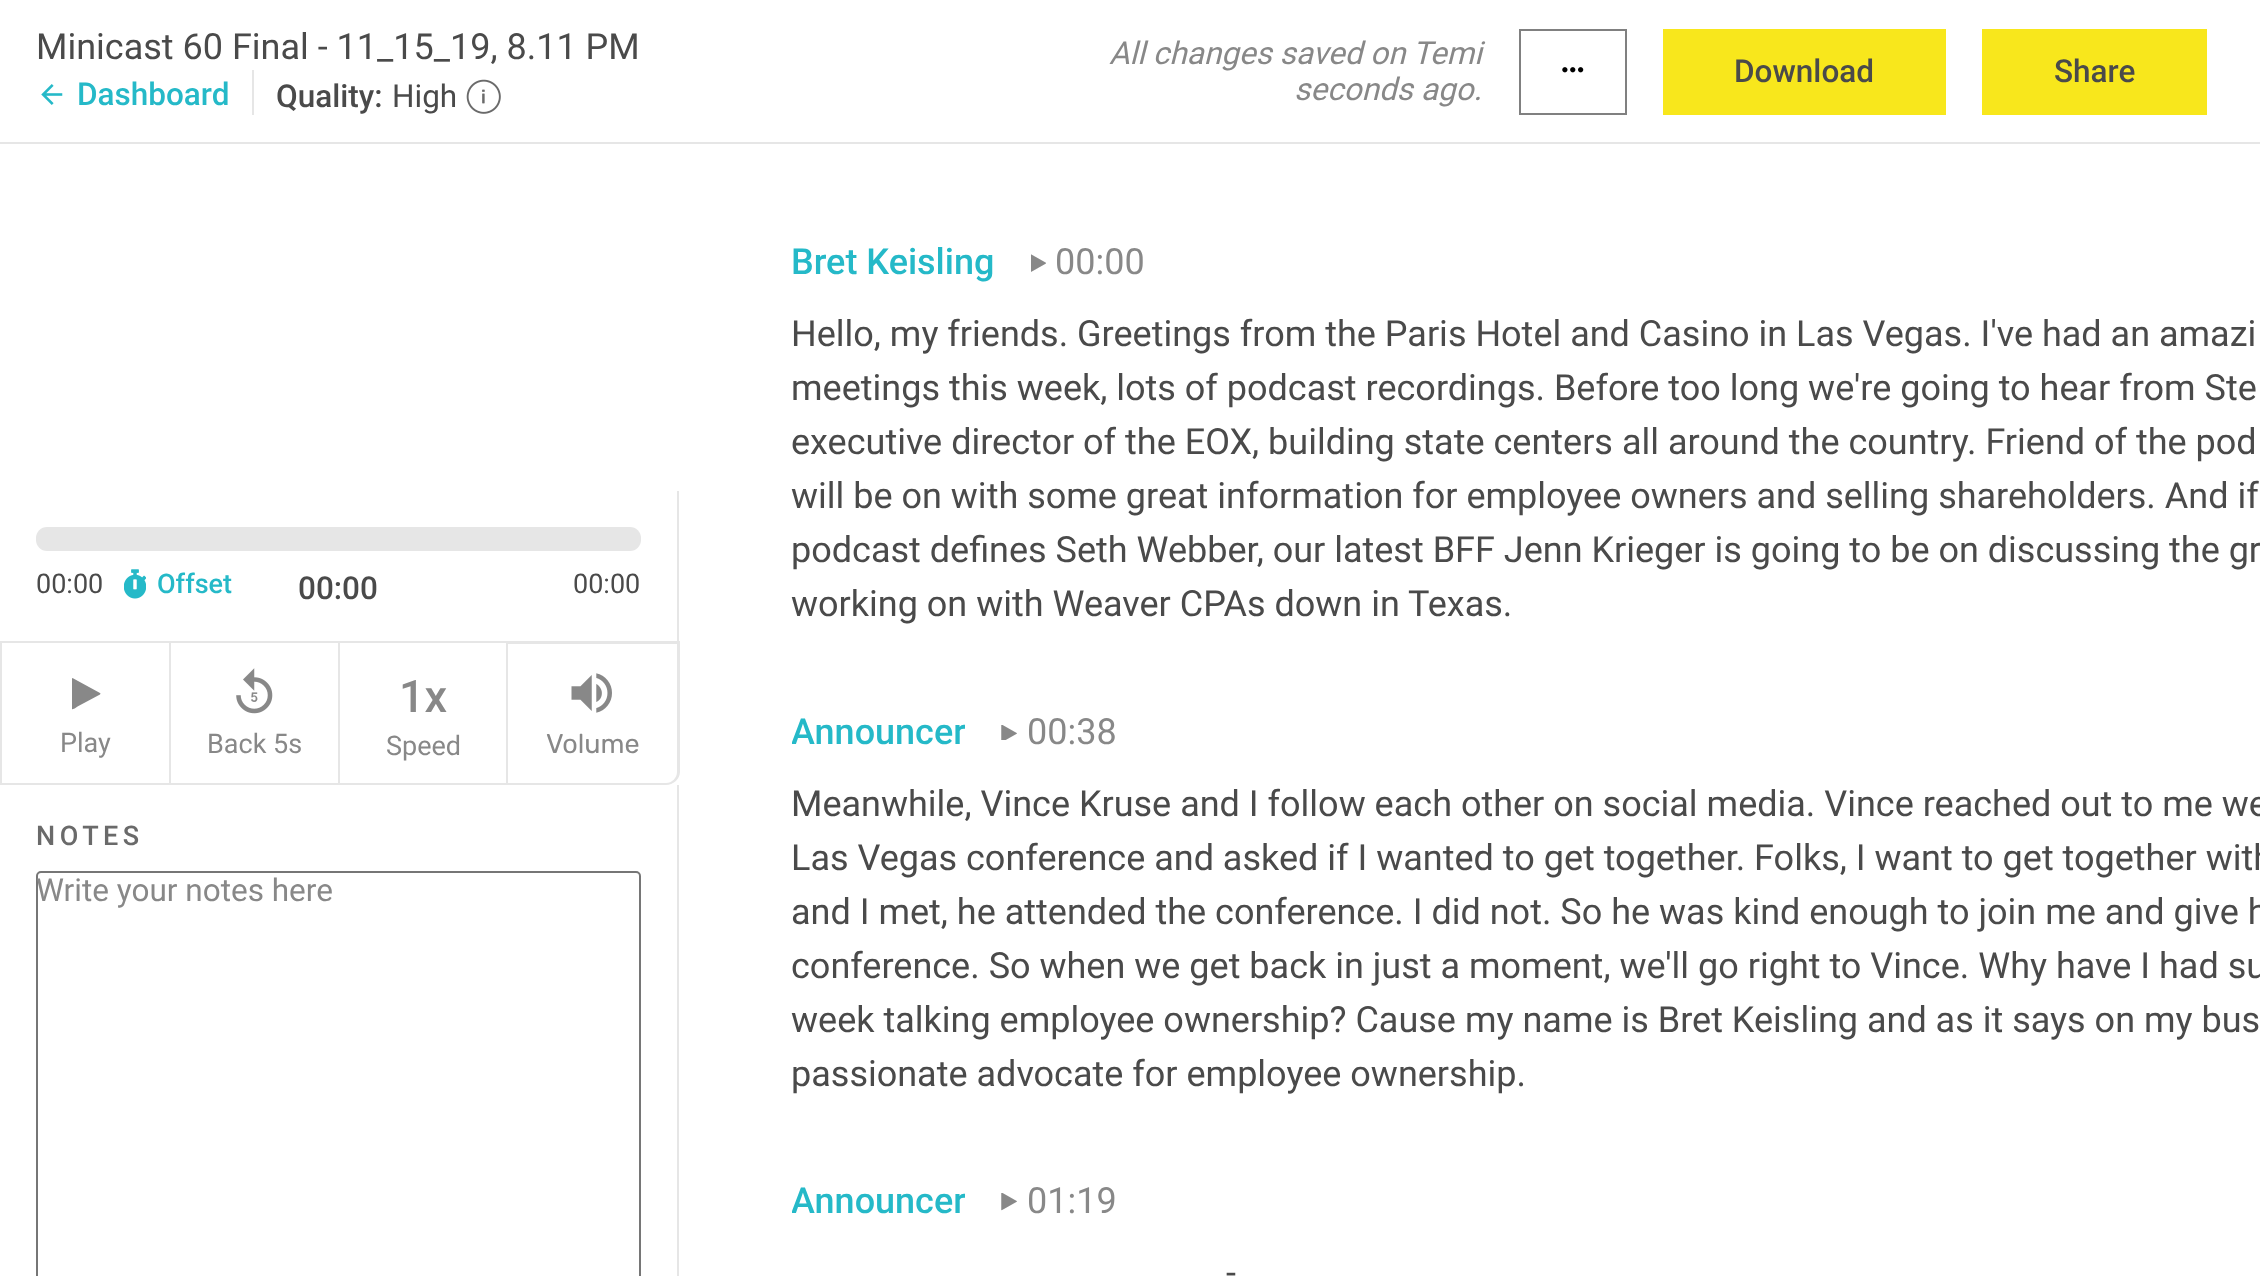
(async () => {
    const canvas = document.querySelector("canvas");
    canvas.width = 2260;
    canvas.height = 1276;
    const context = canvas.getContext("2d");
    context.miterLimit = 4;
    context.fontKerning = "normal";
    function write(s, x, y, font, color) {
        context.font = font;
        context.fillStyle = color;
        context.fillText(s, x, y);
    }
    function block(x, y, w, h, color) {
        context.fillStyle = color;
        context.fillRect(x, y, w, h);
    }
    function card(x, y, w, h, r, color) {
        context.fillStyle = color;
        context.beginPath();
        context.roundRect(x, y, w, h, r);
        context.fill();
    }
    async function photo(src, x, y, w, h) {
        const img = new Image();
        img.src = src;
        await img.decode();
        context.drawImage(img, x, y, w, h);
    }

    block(0, 0, 2260, 1276, "rgb(255, 255, 255)");
    block(0, 142, 2260, 2, "rgb(230, 230, 230)");
    write("Minicast 60 Final - 11_15_19, 8.11 PM", 36, 59, "36px Roboto", "rgb(74, 74, 74)");
    await photo("media/1.png", 41, 84, 22, 21);
    write("Dashboard", 77, 105, "500 31.5px Roboto", "rgb(37, 185, 200)");
    block(252, 70, 2, 45, "rgb(230, 230, 230)");
    write("Quality:", 276, 107, "500 31.5px Roboto", "rgb(74, 74, 74)");
    write("High", 392, 107, "31.5px Roboto", "rgb(74, 74, 74)");
    await photo("media/2.png", 466, 79, 35, 35);
    write("All changes saved on Temi", 1109, 64, "italic 31.5px Roboto", "rgb(136, 136, 136)");
    write("seconds ago.", 1294, 100, "italic 31.5px Roboto", "rgb(136, 136, 136)");
    context.strokeStyle = "rgb(128, 128, 128)";
    context.lineWidth = 2;
    context.strokeRect(1520, 30, 106, 84);
    await photo("media/3.png", 1562, 67, 22, 6);
    block(1663, 29, 283, 86, "rgb(248, 231, 28)");
    write("Download", 1734, 82, "500 31.5px Roboto", "rgb(74, 74, 74)");
    block(1982, 29, 225, 86, "rgb(248, 231, 28)");
    write("Share", 2054, 82, "500 31.5px Roboto", "rgb(74, 74, 74)");
    block(677, 491, 2, 150, "rgb(230, 230, 230)");
    card(36, 527, 605, 24, 11, "rgb(230, 230, 230)");
    write("00:00", 36, 593, "27px Roboto", "rgb(74, 74, 74)");
    await photo("media/4.png", 124, 569, 22, 30);
    write("Offset", 157, 593, "500 27px Roboto", "rgb(37, 185, 200)");
    write("00:00", 298, 599, "500 31.5px Roboto", "rgb(74, 74, 74)");
    write("00:00", 573, 593, "27px Roboto", "rgb(74, 74, 74)");
    context.strokeStyle = "rgb(230, 230, 230)";
    context.strokeRect(1, 642, 169, 142);
    context.fillStyle = "rgb(136, 136, 136)";
    context.beginPath();
    context.moveTo(100, 694.5);
    context.lineTo(77.5, 706.5);
    context.bezierCurveTo(77, 707, 73, 710, 72, 709);
    context.lineTo(72, 678.5);
    context.lineTo(72.5, 678);
    context.lineTo(100, 693);
    context.lineTo(100.5, 693.5);
    context.closePath();
    context.fill();
    write("Play", 60, 752, "27px Roboto", "rgb(136, 136, 136)");
    block(171, 641, 338, 2, "rgb(230, 230, 230)");
    block(338, 641, 2, 144, "rgb(230, 230, 230)");
    block(171, 783, 169, 2, "rgb(230, 230, 230)");
    await photo("media/5.png", 236, 668, 37, 46);
    write("Back 5s", 207, 753, "27px Roboto", "rgb(136, 136, 136)");
    block(506, 641, 2, 144, "rgb(230, 230, 230)");
    block(340, 783, 169, 2, "rgb(230, 230, 230)");
    write("1x", 399, 712, "500 45px Roboto", "rgb(136, 136, 136)");
    write("Speed", 386, 755, "27px Roboto", "rgb(136, 136, 136)");
    context.fillStyle = "rgb(230, 230, 230)";
    context.beginPath();
    context.moveTo(508, 641);
    context.lineTo(680, 641);
    context.lineTo(680, 772);
    context.bezierCurveTo(680, 779, 673, 785, 666, 785);
    context.lineTo(508, 785);
    context.closePath();
    context.moveTo(508, 644);
    context.lineTo(677, 644);
    context.lineTo(677, 772);
    context.bezierCurveTo(677, 778, 672, 783, 666, 783);
    context.lineTo(508, 783);
    context.closePath();
    context.fill("evenodd");
    await photo("media/6.png", 571, 673, 41, 40);
    write("Volume", 546, 753, "27px Rubik", "rgb(136, 136, 136)");
    block(677, 785, 2, 491, "rgb(230, 230, 230)");
    context.letterSpacing = "4.5px";
    write("NOTES", 36, 845, "500 27px Roboto", "rgb(106, 106, 106)");
    context.beginPath();
    context.roundRect(37, 872, 603, 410, 4);
    context.strokeStyle = "rgb(118, 118, 118)";
    context.stroke();
    context.letterSpacing = "0px";
    write("Write your notes here", 36, 901, "31.5px Roboto", "rgb(136, 136, 136)");
    write("Bret Keisling", 791, 274, "500 36px Roboto", "rgb(37, 185, 200)");
    await photo("media/7.png", 1031, 254, 15, 18);
    write("00:00", 1055, 274, "36px Roboto", "rgb(136, 136, 136)");
    write("Hello, my friends. Greetings from the Paris Hotel and Casino in Las Vegas. I've had an amazi", 791, 346, "36px Roboto", "rgb(74, 74, 74)");
    write("meetings this week, lots of podcast recordings. Before too long we're going to hear from Ste", 791, 400, "36px Roboto", "rgb(74, 74, 74)");
    write("executive director of the EOX, building state centers all around the country. Friend of the pod", 791, 454, "36px Roboto", "rgb(74, 74, 74)");
    write("will be on with some great information for employee owners and selling shareholders. And if", 791, 508, "36px Roboto", "rgb(74, 74, 74)");
    write("podcast defines Seth Webber, our latest BFF Jenn Krieger is going to be on discussing the gr", 791, 562, "36px Roboto", "rgb(74, 74, 74)");
    write("working on with Weaver CPAs down in Texas.", 791, 616, "36px Roboto", "rgb(74, 74, 74)");
    context.save();
    context.beginPath();
    context.rect(792, 707, 173, 54);
    context.clip();
    write("Announcer", 791, 744, "500 36px Roboto", "rgb(37, 185, 200)");
    context.restore();
    await photo("media/8.png", 1001, 725, 16, 15);
    write("00:38", 1027, 744, "36px Roboto", "rgb(136, 136, 136)");
    write("Meanwhile, Vince Kruse and I follow each other on social media. Vince reached out to me we", 791, 816, "36px Roboto", "rgb(74, 74, 74)");
    write("Las Vegas conference and asked if I wanted to get together. Folks, I want to get together with", 791, 870, "36px Roboto", "rgb(74, 74, 74)");
    write("and I met, he attended the conference. I did not. So he was kind enough to join me and give h", 791, 924, "36px Roboto", "rgb(74, 74, 74)");
    write("conference. So when we get back in just a moment, we'll go right to Vince. Why have I had su", 791, 978, "36px Roboto", "rgb(74, 74, 74)");
    write("week talking employee ownership? Cause my name is Bret Keisling and as it says on my bus", 791, 1032, "36px Roboto", "rgb(74, 74, 74)");
    write("passionate advocate for employee ownership.", 791, 1086, "36px Roboto", "rgb(74, 74, 74)");
    context.save();
    context.beginPath();
    context.rect(792, 1175, 173, 54);
    context.clip();
    write("Announcer", 791, 1213, "500 36px Roboto", "rgb(37, 185, 200)");
    context.restore();
    await photo("media/9.png", 1001, 1193, 16, 18);
    write("01:19", 1027, 1213, "36px Roboto", "rgb(136, 136, 136)");
    write("-", 1226, 1285, "36px Roboto", "rgb(74, 74, 74)");
})();
